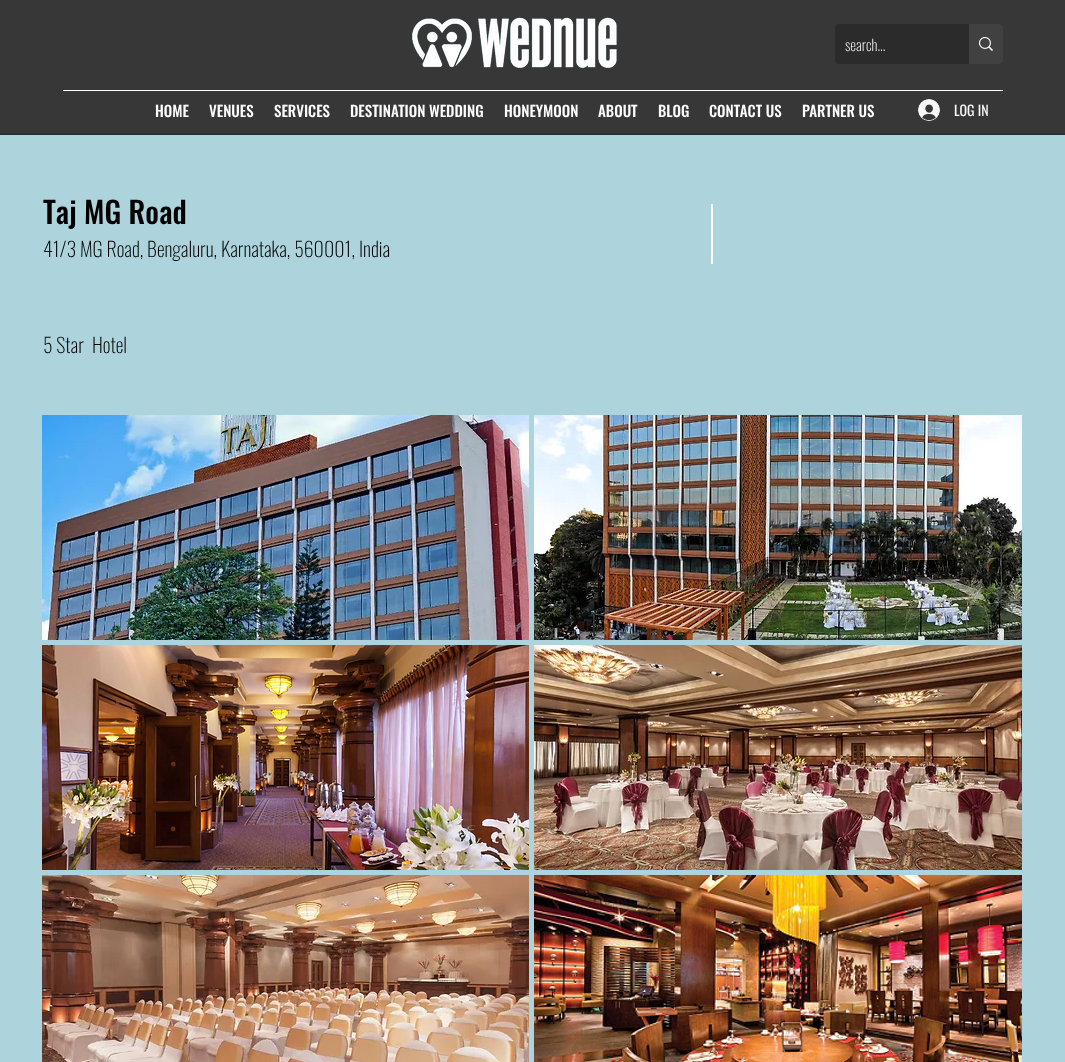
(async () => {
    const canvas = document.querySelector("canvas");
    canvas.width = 1065;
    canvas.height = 1062;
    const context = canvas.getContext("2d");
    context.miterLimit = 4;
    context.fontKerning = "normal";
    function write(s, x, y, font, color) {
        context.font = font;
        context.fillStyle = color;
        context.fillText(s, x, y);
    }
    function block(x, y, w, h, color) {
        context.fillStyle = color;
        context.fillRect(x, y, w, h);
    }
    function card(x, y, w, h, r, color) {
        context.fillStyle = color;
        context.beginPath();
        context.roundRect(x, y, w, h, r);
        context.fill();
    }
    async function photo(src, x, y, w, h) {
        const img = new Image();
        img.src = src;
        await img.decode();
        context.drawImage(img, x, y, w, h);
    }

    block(0, 0, 1065, 1062, "rgb(55, 55, 55)");
    await photo("media/1.png", 412, 17, 205, 51);
    card(835, 24, 168, 40, 4, "rgb(43, 43, 43)");
    write("search...", 845, 51, "200 15px Oswald", "rgb(255, 255, 255)");
    context.fillStyle = "rgb(65, 65, 65)";
    context.beginPath();
    context.roundRect(969, 24, 34, 40, [0, 4, 4, 0]);
    context.fill();
    await photo("media/2.png", 979, 37, 14, 14);
    block(63, 90, 940, 1, "rgb(255, 255, 255)");
    write("HOME", 155, 117, "500 15px Oswald", "rgb(255, 255, 255)");
    write("VENUES", 209, 117, "500 15px Oswald", "rgb(255, 255, 255)");
    write("SERVICES", 274, 117, "500 15px Oswald", "rgb(255, 255, 255)");
    write("DESTINATION WEDDING", 350, 117, "500 15px Oswald", "rgb(255, 255, 255)");
    write("HONEYMOON", 504, 117, "500 15px Oswald", "rgb(255, 255, 255)");
    write("ABOUT", 598, 117, "500 15px Oswald", "rgb(255, 255, 255)");
    write("BLOG", 658, 117, "500 15px Oswald", "rgb(255, 255, 255)");
    write("CONTACT US", 709, 117, "500 15px Oswald", "rgb(255, 255, 255)");
    write("PARTNER US", 802, 117, "500 15px Oswald", "rgb(255, 255, 255)");
    await photo("media/3.png", 918, 99, 22, 22);
    write("LOG IN", 954, 116, "14px Oswald", "rgb(248, 248, 248)");
    block(0, 135, 1065, 927, "rgb(173, 212, 220)");
    block(0, 133, 1065, 2, "rgb(43, 49, 50)");
    write("Taj MG Road", 43, 224, "500 30px Oswald", "rgb(0, 0, 0)");
    block(711, 204, 2, 60, "rgb(255, 255, 255)");
    write("41/3 MG Road, Bengaluru, Karnataka, 560001, India", 43, 257, "200 20px Oswald", "rgb(0, 0, 0)");
    write("5 Star", 43, 353, "200 20px Oswald", "rgb(0, 0, 0)");
    write("Hotel", 92, 353, "200 20px Oswald", "rgb(0, 0, 0)");
    await photo("media/4.png", 42, 415, 487, 225);
    await photo("media/5.png", 534, 415, 488, 225);
    await photo("media/6.png", 42, 645, 487, 225);
    await photo("media/7.png", 534, 645, 488, 225);
    await photo("media/8.png", 42, 875, 487, 187);
    await photo("media/9.png", 534, 875, 488, 187);
})();
